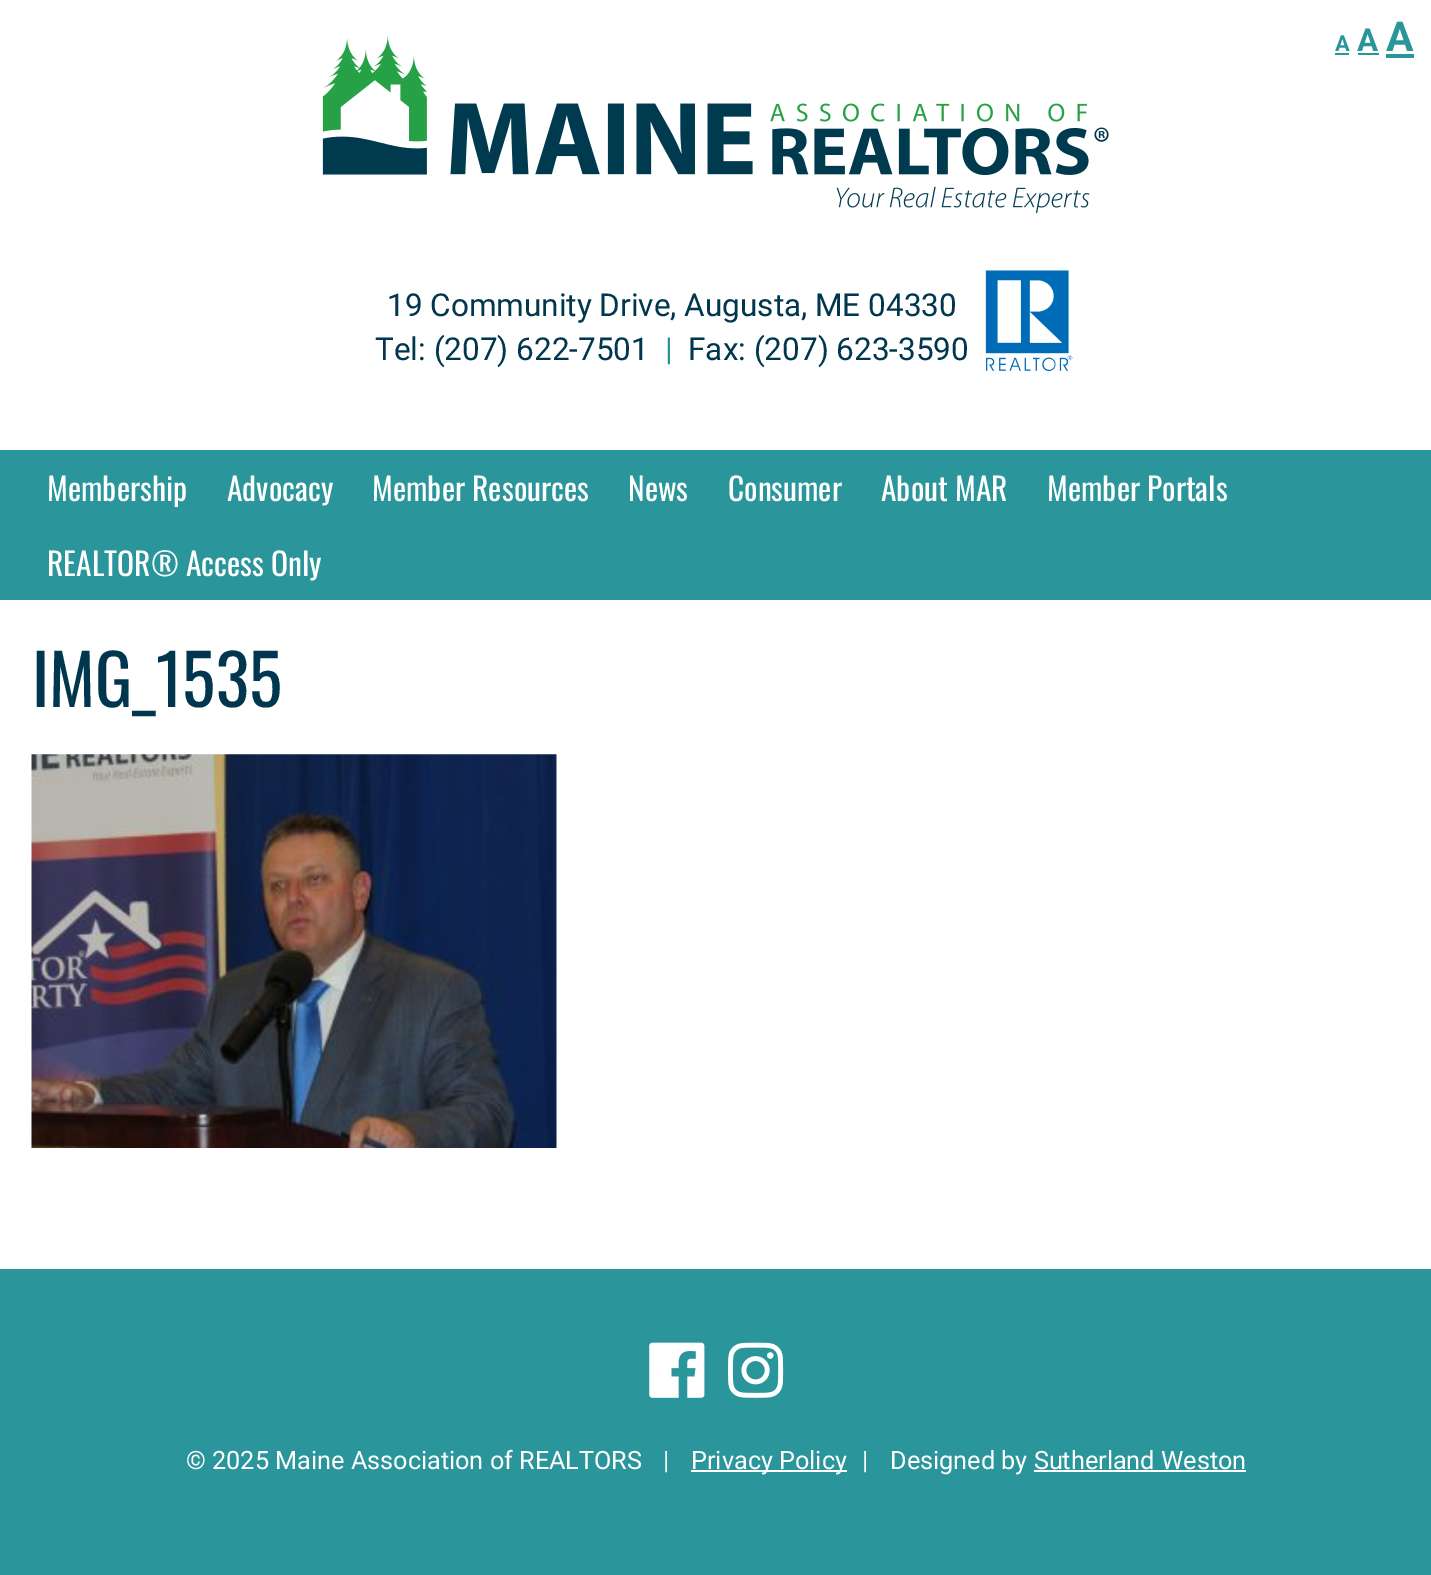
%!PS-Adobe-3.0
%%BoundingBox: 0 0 1431 1575
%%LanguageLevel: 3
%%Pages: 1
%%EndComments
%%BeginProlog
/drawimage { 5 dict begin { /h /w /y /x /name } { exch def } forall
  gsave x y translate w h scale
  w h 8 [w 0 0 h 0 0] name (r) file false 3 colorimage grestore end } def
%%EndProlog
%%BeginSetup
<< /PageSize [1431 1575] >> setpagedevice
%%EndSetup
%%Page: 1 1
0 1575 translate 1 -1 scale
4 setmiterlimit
0.165 0.588 0.608 setrgbcolor
0 0 1431 1575 rectfill
1 setgray
0 0 1431 1269 rectfill
(images/1.raw) 322 36 787 177 drawimage
0.165 0.588 0.608 setrgbcolor
1335 53 14 2 rectfill
1358 53 21 2 rectfill
1386 54 28 4 rectfill
(images/2.raw) 985 270 88 102 drawimage
0 450 1431 150 rectfill
(images/3.raw) 31 754 526 394 drawimage
(images/4.raw) 649 1342 56 56 drawimage
(images/5.raw) 728 1342 56 56 drawimage
1 setgray
691 1470 156 2 rectfill
1034 1470 212 2 rectfill
/Roboto-Bold [22 0 0 -22 0 0] selectfont
0.165 0.588 0.608 setrgbcolor
1335 51 moveto (A) show
/Roboto-Bold [31.5 0 0 -31.5 0 0] selectfont
1357 51 moveto (A) show
/Roboto-Bold [41 0 0 -41 0 0] selectfont
1386 51 moveto (A) show
/Roboto-Regular [31.5 0 0 -31.5 0 0] selectfont
0.004 0.216 0.306 setrgbcolor
387 316 moveto (19 Community Drive, Augusta, ME 04330) show
375 360 moveto (Tel: \(207\) 622-7501) show
0.165 0.588 0.608 setrgbcolor
665 360 moveto (|) show
0.004 0.216 0.306 setrgbcolor
688 360 moveto (Fax: \(207\) 623-3590) show
/Oswald-Regular [31.5 0 0 -31.5 0 0] selectfont
1 setgray
47 501 moveto (Membership) show
227 501 moveto (Advocacy) show
372 501 moveto (Member Resources) show
628 501 moveto (News) show
728 501 moveto (Consumer) show
881 501 moveto (About MAR) show
1047 501 moveto (Member Portals) show
47 576 moveto (REALTOR® Access Only) show
/Oswald-Regular [69.5 0 0 -69.5 0 0] selectfont
0.004 0.216 0.306 setrgbcolor
32 707 moveto (IMG_1535) show
/Roboto-Regular [25.25 0 0 -25.25 0 0] selectfont
1 setgray
186 1469 moveto (© 2025 Maine Association of REALTORS) show
663 1469 moveto (|) show
691 1469 moveto (Privacy Policy) show
862 1469 moveto (|) show
890 1469 moveto (Designed by Sutherland Weston) show
showpage
%%EOF
